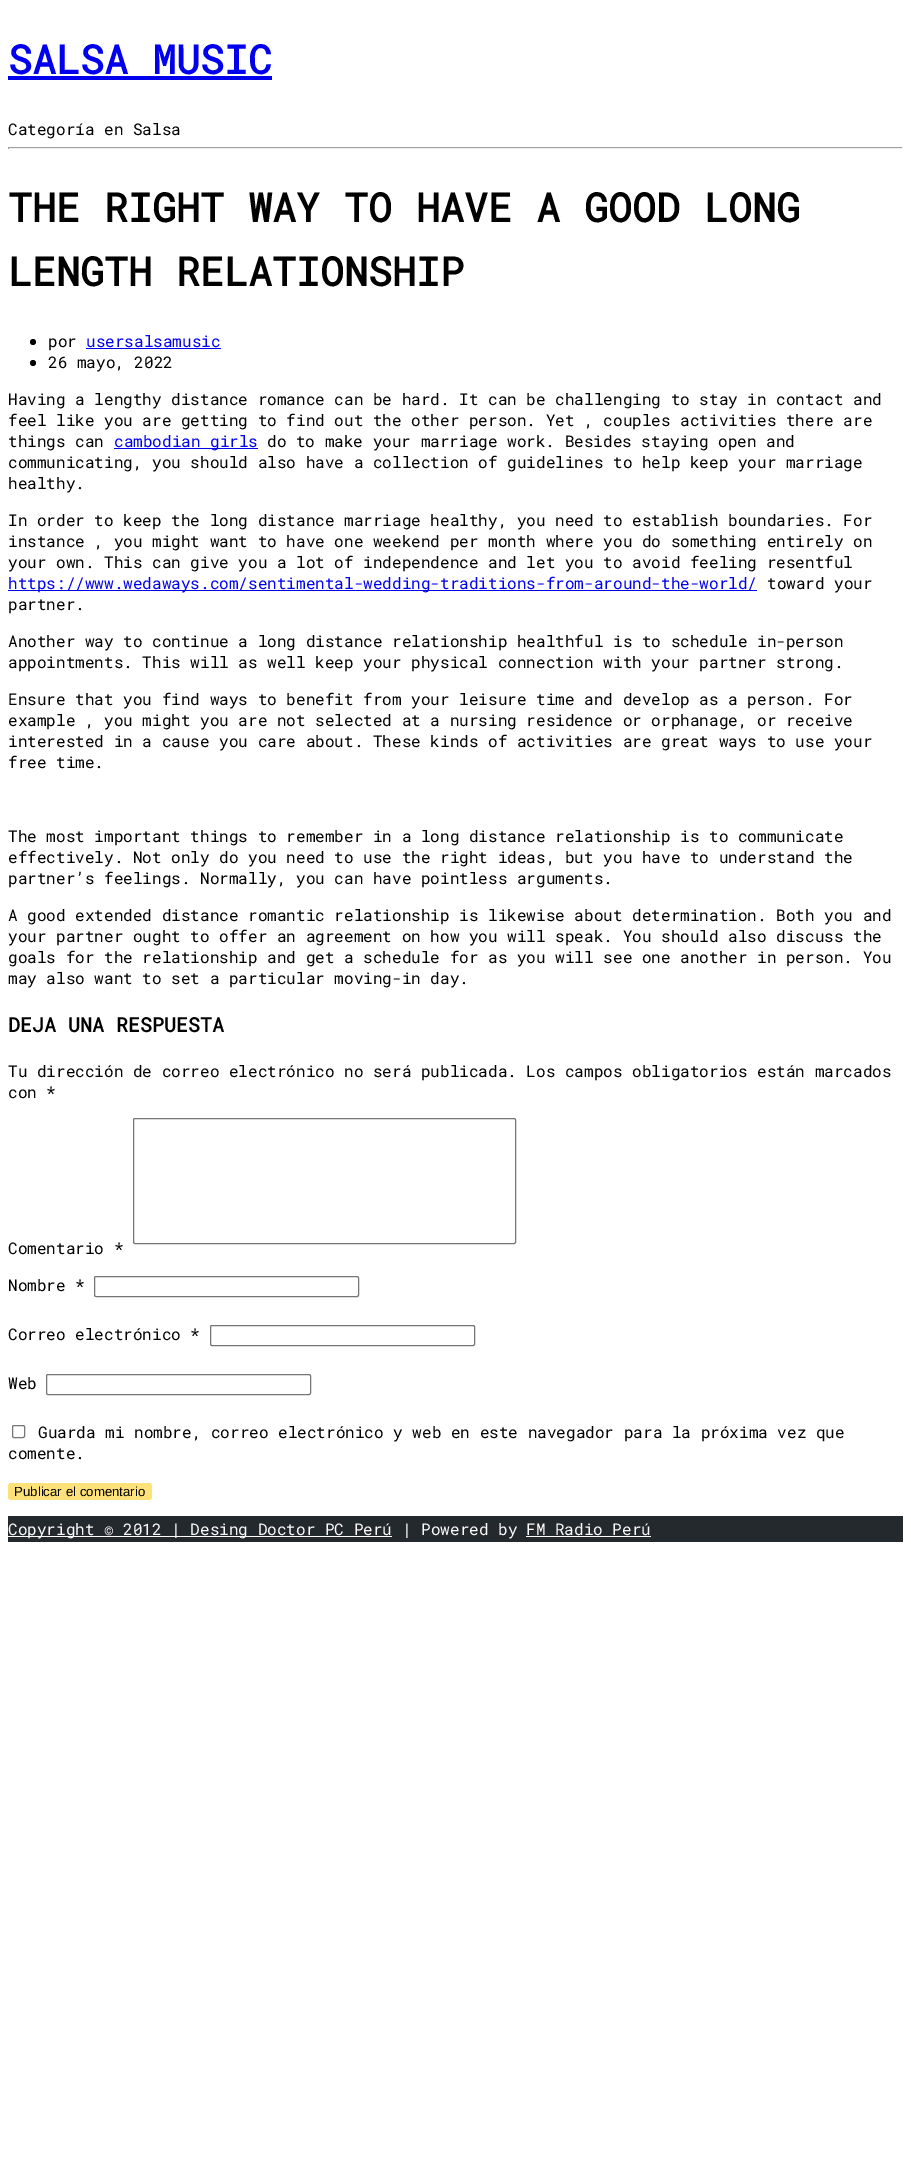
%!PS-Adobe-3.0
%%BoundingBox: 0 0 911 2180
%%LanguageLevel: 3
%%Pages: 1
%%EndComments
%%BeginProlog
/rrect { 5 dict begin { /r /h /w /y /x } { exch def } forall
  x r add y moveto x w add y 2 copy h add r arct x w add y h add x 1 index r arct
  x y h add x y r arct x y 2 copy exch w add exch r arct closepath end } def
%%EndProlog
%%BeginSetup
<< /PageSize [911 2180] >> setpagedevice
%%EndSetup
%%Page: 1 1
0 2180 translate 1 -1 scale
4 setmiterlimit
1 setgray
0 0 911 2180 rectfill
0 0 0.933 setrgbcolor
8 76 264 4 rectfill
0.624 setgray
8 147 895 1 rectfill
0.933 setgray
902 147 1 2 rectfill
8 148 895 1 rectfill
0.624 setgray
8 147 1 2 rectfill
0 setgray
newpath 33 342 3 0 360 arc closepath fill
0 0 0.933 setrgbcolor
86 348 135 1 rectfill
0 setgray
newpath 33 363 3 0 360 arc closepath fill
0 0 0.933 setrgbcolor
114 448 144 1 rectfill
8 590 749 1 rectfill
0.463 setgray
133.5 1118.5 382 125 1.5 rrect stroke
94.5 1276.5 264 20 1.5 rrect stroke
210.5 1325.5 264 20 1.5 rrect stroke
46.5 1374.5 264 20 1.5 rrect stroke
12.5 1425.5 12 12 1.5 rrect stroke
1 0.882 0.475 setrgbcolor
8 1483 144 17 3 rrect fill
0.141 0.161 0.18 setrgbcolor
8 1516 895 26 rectfill
1 0.988 0.988 setrgbcolor
8 1536 384 1 rectfill
526 1536 125 1 rectfill
/RobotoMono-Bold [40 0 0 -40 0 0] selectfont
0 0 0.933 setrgbcolor
8 74 moveto (SALSA MUSIC) show
/RobotoMono-Regular [16 0 0 -16 0 0] selectfont
0 setgray
8 135 moveto (Categoría en Salsa) show
/RobotoMono-Bold [40 0 0 -40 0 0] selectfont
8 222 moveto (THE RIGHT WAY TO HAVE A GOOD LONG) show
8 286 moveto (LENGTH RELATIONSHIP) show
/RobotoMono-Regular [16 0 0 -16 0 0] selectfont
48 347 moveto (por) show
0 0 0.933 setrgbcolor
86 347 moveto (usersalsamusic) show
0 setgray
48 368 moveto (26 mayo, 2022) show
8 405 moveto (Having a lengthy distance romance can be hard. It can be challenging to stay in contact and) show
8 426 moveto (feel like you are getting to find out the other person. Yet , couples activities there are) show
8 447 moveto (things can) show
0 0 0.933 setrgbcolor
114 447 moveto (cambodian girls) show
0 setgray
267 447 moveto (do to make your marriage work. Besides staying open and) show
8 468 moveto (communicating, you should also have a collection of guidelines to help keep your marriage) show
8 489 moveto (healthy.) show
8 526 moveto (In order to keep the long distance marriage healthy, you need to establish boundaries. For) show
8 547 moveto (instance , you might want to have one weekend per month where you do something entirely on) show
8 568 moveto (your own. This can give you a lot of independence and let you to avoid feeling resentful) show
0 0 0.933 setrgbcolor
8 589 moveto (https://www.wedaways.com/sentimental-wedding-traditions-from-around-the-world/) show
0 setgray
767 589 moveto (toward your) show
8 610 moveto (partner.) show
8 647 moveto (Another way to continue a long distance relationship healthful is to schedule in-person) show
8 668 moveto (appointments. This will as well keep your physical connection with your partner strong.) show
8 705 moveto (Ensure that you find ways to benefit from your leisure time and develop as a person. For) show
8 726 moveto (example , you might you are not selected at a nursing residence or orphanage, or receive) show
8 747 moveto (interested in a cause you care about. These kinds of activities are great ways to use your) show
8 768 moveto (free time.) show
8 842 moveto (The most important things to remember in a long distance relationship is to communicate) show
8 863 moveto (effectively. Not only do you need to use the right ideas, but you have to understand the) show
8 884 moveto (partner’s feelings. Normally, you can have pointless arguments.) show
8 921 moveto (A good extended distance romantic relationship is likewise about determination. Both you and) show
8 942 moveto (your partner ought to offer an agreement on how you will speak. You should also discuss the) show
8 963 moveto (goals for the relationship and get a schedule for as you will see one another in person. You) show
8 984 moveto (may also want to set a particular moving-in day.) show
/RobotoMono-Bold [20 0 0 -20 0 0] selectfont
8 1032 moveto (DEJA UNA RESPUESTA) show
/RobotoMono-Regular [16 0 0 -16 0 0] selectfont
8 1077 moveto (Tu dirección de correo electrónico no será publicada. Los campos obligatorios están marcados) show
8 1098 moveto (con *) show
8 1254 moveto (Comentario *) show
8 1291 moveto (Nombre *) show
8 1340 moveto (Correo electrónico *) show
8 1389 moveto (Web) show
38 1438 moveto (Guarda mi nombre, correo electrónico y web en este navegador para la próxima vez que) show
8 1459 moveto (comente.) show
/LiberationSans-Regular [13.25 0 0 -13.25 0 0] selectfont
14 1496 moveto (Publicar el comentario) show
/RobotoMono-Regular [16 0 0 -16 0 0] selectfont
1 0.988 0.988 setrgbcolor
8 1535 moveto (Copyright © 2012 | Desing Doctor PC Perú) show
402 1535 moveto (| Powered by) show
526 1535 moveto (FM Radio Perú) show
showpage
%%EOF
